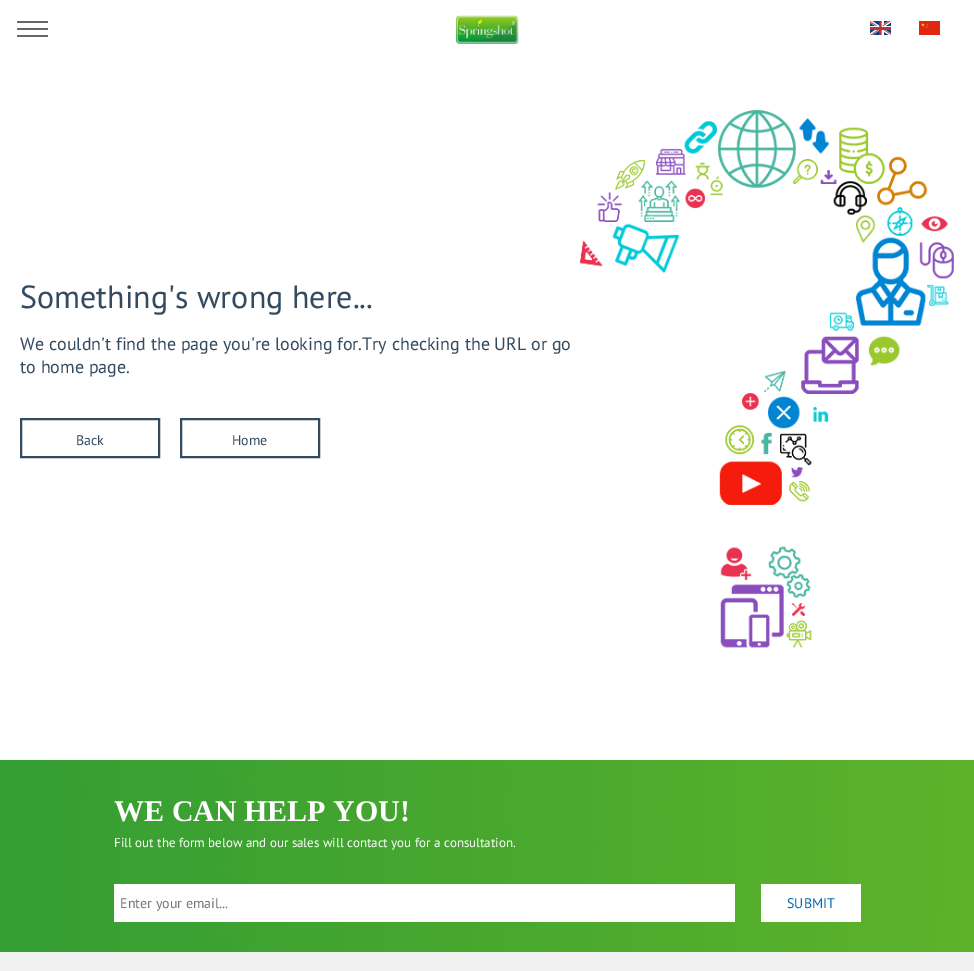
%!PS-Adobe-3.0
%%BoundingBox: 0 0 974 971
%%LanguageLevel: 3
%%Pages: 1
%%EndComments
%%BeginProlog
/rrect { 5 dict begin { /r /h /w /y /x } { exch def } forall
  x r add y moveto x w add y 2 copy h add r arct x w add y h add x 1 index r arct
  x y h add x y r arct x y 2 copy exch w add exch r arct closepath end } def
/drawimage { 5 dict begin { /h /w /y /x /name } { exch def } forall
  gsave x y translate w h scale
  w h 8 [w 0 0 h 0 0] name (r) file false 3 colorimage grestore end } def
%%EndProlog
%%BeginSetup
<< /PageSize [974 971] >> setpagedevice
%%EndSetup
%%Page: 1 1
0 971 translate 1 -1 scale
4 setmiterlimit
1 setgray
0 0 974 971 rectfill
0.4 setgray
17 28 31 2 1 rrect fill
17 21 31 2 1 rrect fill
17 35 31 2 1 rrect fill
(images/1.raw) 456 15 63 29 drawimage
(images/2.raw) 870 21 21 14 drawimage
(images/3.raw) 919 21 21 14 drawimage
0.204 0.29 0.373 setrgbcolor
2 setlinewidth
21 419 138 38 rectstroke
181 419 138 38 rectstroke
(images/4.raw) 580 110 374 538 drawimage
(images/5.raw) 0 760 974 192 drawimage
1 setgray
114 884 621 38 rectfill
761 884 100 38 rectfill
0.945 setgray
0 952 974 19 rectfill
/PTSans-Regular [32 0 0 -32 0 0] selectfont
0.204 0.29 0.373 setrgbcolor
20 308 moveto (Something's wrong here...) show
/PTSans-Regular [18 0 0 -18 0 0] selectfont
20 350 moveto (We couldn't find the page you're looking for.Try checking the URL or go) show
20 373 moveto (to home page.) show
/PTSans-Regular [14 0 0 -14 0 0] selectfont
76 445 moveto (Back) show
232 445 moveto (Home) show
/LiberationSerif-Bold [30 0 0 -30 0 0] selectfont
1 setgray
114 821 moveto (WE CAN HELP YOU!) show
/PTSans-Regular [13 0 0 -13 0 0] selectfont
114 847 moveto (Fill out the form below and our sales will contact you for a consultation.) show
/PTSans-Regular [14 0 0 -14 0 0] selectfont
0.459 setgray
120 908 moveto (Enter your email...) show
0 0.416 0.702 setrgbcolor
787 908 moveto (SUBMIT) show
showpage
%%EOF
